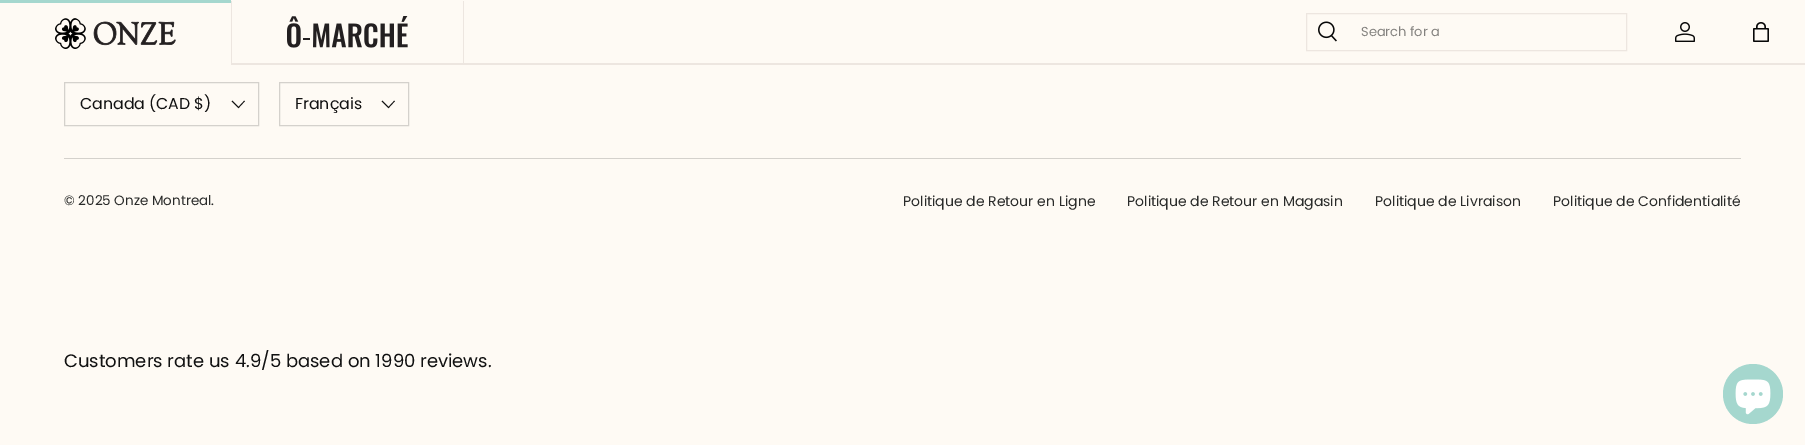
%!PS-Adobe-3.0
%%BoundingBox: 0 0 1805 445
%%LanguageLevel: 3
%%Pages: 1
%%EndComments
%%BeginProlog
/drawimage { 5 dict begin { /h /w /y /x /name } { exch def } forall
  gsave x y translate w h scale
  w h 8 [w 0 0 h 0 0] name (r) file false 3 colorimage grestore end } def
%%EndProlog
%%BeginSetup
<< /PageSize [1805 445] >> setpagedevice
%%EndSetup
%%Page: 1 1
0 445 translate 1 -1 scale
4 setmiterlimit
0.996 0.98 0.957 setrgbcolor
0 0 1805 445 rectfill
0.929 0.902 0.878 setrgbcolor
231 63 1574 2 rectfill
0.647 0.843 0.808 setrgbcolor
0 0 231 3 rectfill
(images/1.raw) 55 18 121 31 drawimage
0.929 0.902 0.878 setrgbcolor
463 1 1 62 rectfill
231 1 1 62 rectfill
(images/2.raw) 287 16 121 32 drawimage
1306.5 13.5 320 37 rectstroke
(images/3.raw) 1318 21 19 21 drawimage
(images/4.raw) 1675 22 20 20 drawimage
(images/5.raw) 1753 22 16 20 drawimage
0.831 0.82 0.8 setrgbcolor
64.5 82.5 194 43 rectstroke
0.067 setgray
0.8 setlinewidth
newpath 244.5 101 moveto 238.5 107.5 lineto 232 101 lineto stroke
0.831 0.82 0.8 setrgbcolor
1 setlinewidth
279.5 82.5 129 43 rectstroke
0.067 setgray
0.8 setlinewidth
newpath 394.5 101 moveto 388.5 107.5 lineto 382 101 lineto stroke
0.831 0.82 0.8 setrgbcolor
64 158 1677 1 rectfill
0.647 0.843 0.808 setrgbcolor
newpath 1753 394 30 0 360 arc closepath fill
(images/6.raw) 1735 379 36 36 drawimage
/Poppins-Regular [13 0 0 -13 0 0] selectfont
0.514 0.506 0.494 setrgbcolor
1361 36 moveto (Search for a) show
/Poppins-Regular [15.75 0 0 -15.75 0 0] selectfont
0.067 setgray
80 109 moveto (Canada \(CAD $\)) show
295 109 moveto (Français) show
/Poppins-Regular [13.5 0 0 -13.5 0 0] selectfont
0.165 0.169 0.165 setrgbcolor
64 205 moveto (© 2025 Onze Montreal.) show
/Poppins-Regular [14 0 0 -14 0 0] selectfont
903 206 moveto (Politique de Retour en Ligne) show
1127 206 moveto (Politique de Retour en Magasin) show
1375 206 moveto (Politique de Livraison) show
1553 206 moveto (Politique de Confidentialité) show
/Poppins-Regular [18 0 0 -18 0 0] selectfont
0.067 setgray
64 367 moveto (Customers rate us 4.9/5 based on 1990 reviews.) show
showpage
%%EOF
